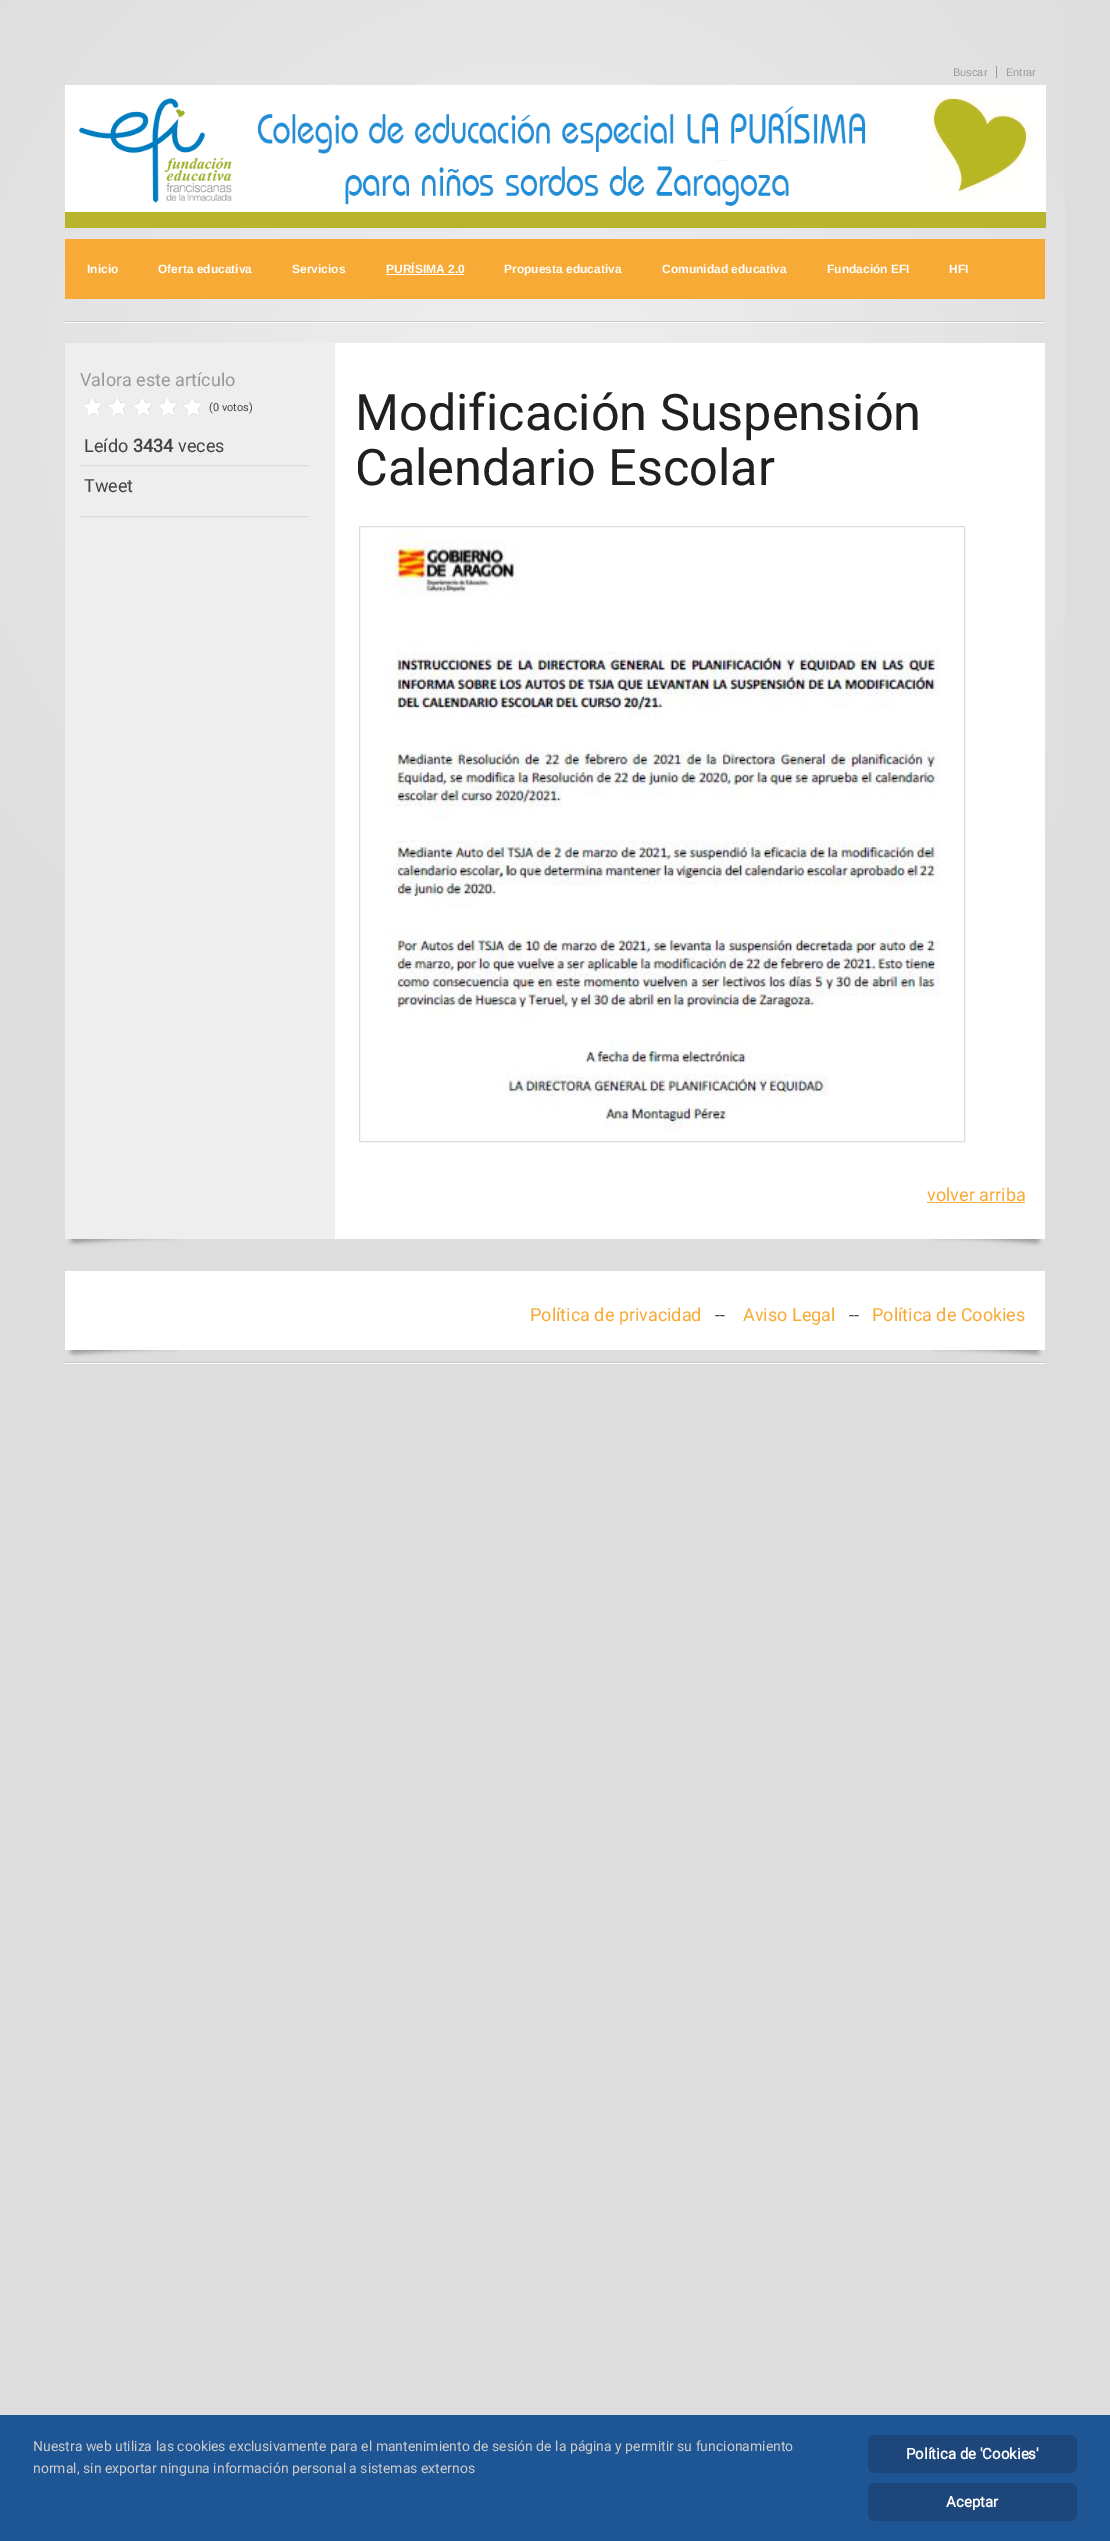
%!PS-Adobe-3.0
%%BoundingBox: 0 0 1110 2541
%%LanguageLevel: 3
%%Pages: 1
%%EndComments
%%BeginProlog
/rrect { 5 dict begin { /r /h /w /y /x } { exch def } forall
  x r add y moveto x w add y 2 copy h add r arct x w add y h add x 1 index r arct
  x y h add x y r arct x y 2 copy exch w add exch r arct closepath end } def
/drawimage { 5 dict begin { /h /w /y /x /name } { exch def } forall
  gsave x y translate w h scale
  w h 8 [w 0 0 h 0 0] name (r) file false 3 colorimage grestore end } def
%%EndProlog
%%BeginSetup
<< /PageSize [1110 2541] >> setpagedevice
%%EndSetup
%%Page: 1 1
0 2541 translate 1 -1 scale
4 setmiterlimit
0.867 setgray
0 0 1110 2541 rectfill
(images/1.raw) 0 0 1065 942 drawimage
0.6 setgray
996 66 1 12 rectfill
(images/2.raw) 65 321 980 2 drawimage
(images/3.raw) 65 85 981 143 drawimage
0.969 0.667 0.212 setrgbcolor
65 239 980 60 rectfill
1 setgray
386 274 78 1 rectfill
(images/4.raw) 67 1239 111 7 drawimage
(images/5.raw) 932 1239 111 7 drawimage
335 343 710 896 rectfill
0.933 setgray
65 343 270 896 rectfill
(images/6.raw) 83 398 119 18 drawimage
0.8 setgray
[1 1] 0 setdash
newpath 80 465.5 moveto 310 465.5 lineto stroke
newpath 80 516.5 moveto 310 516.5 lineto stroke
0.867 setgray
[] 0 setdash
359.5 526.5 605 615 rectstroke
(images/7.raw) 384 529 556 601 drawimage
0.969 0.667 0.212 setrgbcolor
927 1202 98 1 rectfill
(images/4.raw) 67 1350 111 7 drawimage
(images/5.raw) 932 1350 111 7 drawimage
1 setgray
65 1271 980 79 rectfill
(images/2.raw) 65 1362 980 2 drawimage
0.118 0.337 0.584 setrgbcolor
0 2415 1110 126 rectfill
0.114 0.275 0.478 setrgbcolor
868 2435 209 38 7 rrect fill
868 2483 209 38 7 rrect fill
/LiberationSans-Regular [11 0 0 -11 0 0] selectfont
0.6 setgray
953 76 moveto (Buscar) show
1006 76 moveto (Entrar) show
/LiberationSans-Bold [12 0 0 -12 0 0] selectfont
1 setgray
87 273 moveto (Inicio) show
158 273 moveto (Oferta educativa) show
292 273 moveto (Servicios) show
386 273 moveto (PURÍSIMA 2.0) show
504 273 moveto (Propuesta educativa) show
662 273 moveto (Comunidad educativa) show
827 273 moveto (Fundación EFI) show
949 273 moveto (HFI) show
/Roboto-Regular [18 0 0 -18 0 0] selectfont
0.6 setgray
80 386 moveto (Valora este artículo) show
/Roboto-Regular [11 0 0 -11 0 0] selectfont
0.267 setgray
209 411 moveto (\(0 votos\)) show
/Roboto-Regular [18 0 0 -18 0 0] selectfont
84 452 moveto (Leído) show
/Roboto-Bold [18 0 0 -18 0 0] selectfont
133 452 moveto (3434) show
/Roboto-Regular [18 0 0 -18 0 0] selectfont
178 452 moveto (veces) show
84 492 moveto (Tweet) show
/Roboto-Regular [50.4 0 0 -50.4 0 0] selectfont
0.125 setgray
355 430 moveto (Modificación Suspensión) show
355 485 moveto (Calendario Escolar) show
/Roboto-Regular [18 0 0 -18 0 0] selectfont
0.969 0.667 0.212 setrgbcolor
927 1201 moveto (volver arriba) show
530 1321 moveto (Política de privacidad) show
0.267 setgray
715 1321 moveto (--) show
0.969 0.667 0.212 setrgbcolor
743 1321 moveto (Aviso Legal) show
0.267 setgray
849 1321 moveto (--) show
0.969 0.667 0.212 setrgbcolor
872 1321 moveto (Política de Cookies) show
/Roboto-Regular [14 0 0 -14 0 0] selectfont
0.8 setgray
33 2451 moveto (Nuestra web utiliza las cookies exclusivamente para el mantenimiento de sesión de la página y permitir su funcionamiento) show
33 2473 moveto (normal, sin exportar ninguna información personal a sistemas externos) show
/Roboto-Bold [15 0 0 -15 0 0] selectfont
1 setgray
906 2459 moveto (Política de 'Cookies') show
946 2507 moveto (Aceptar) show
showpage
%%EOF
